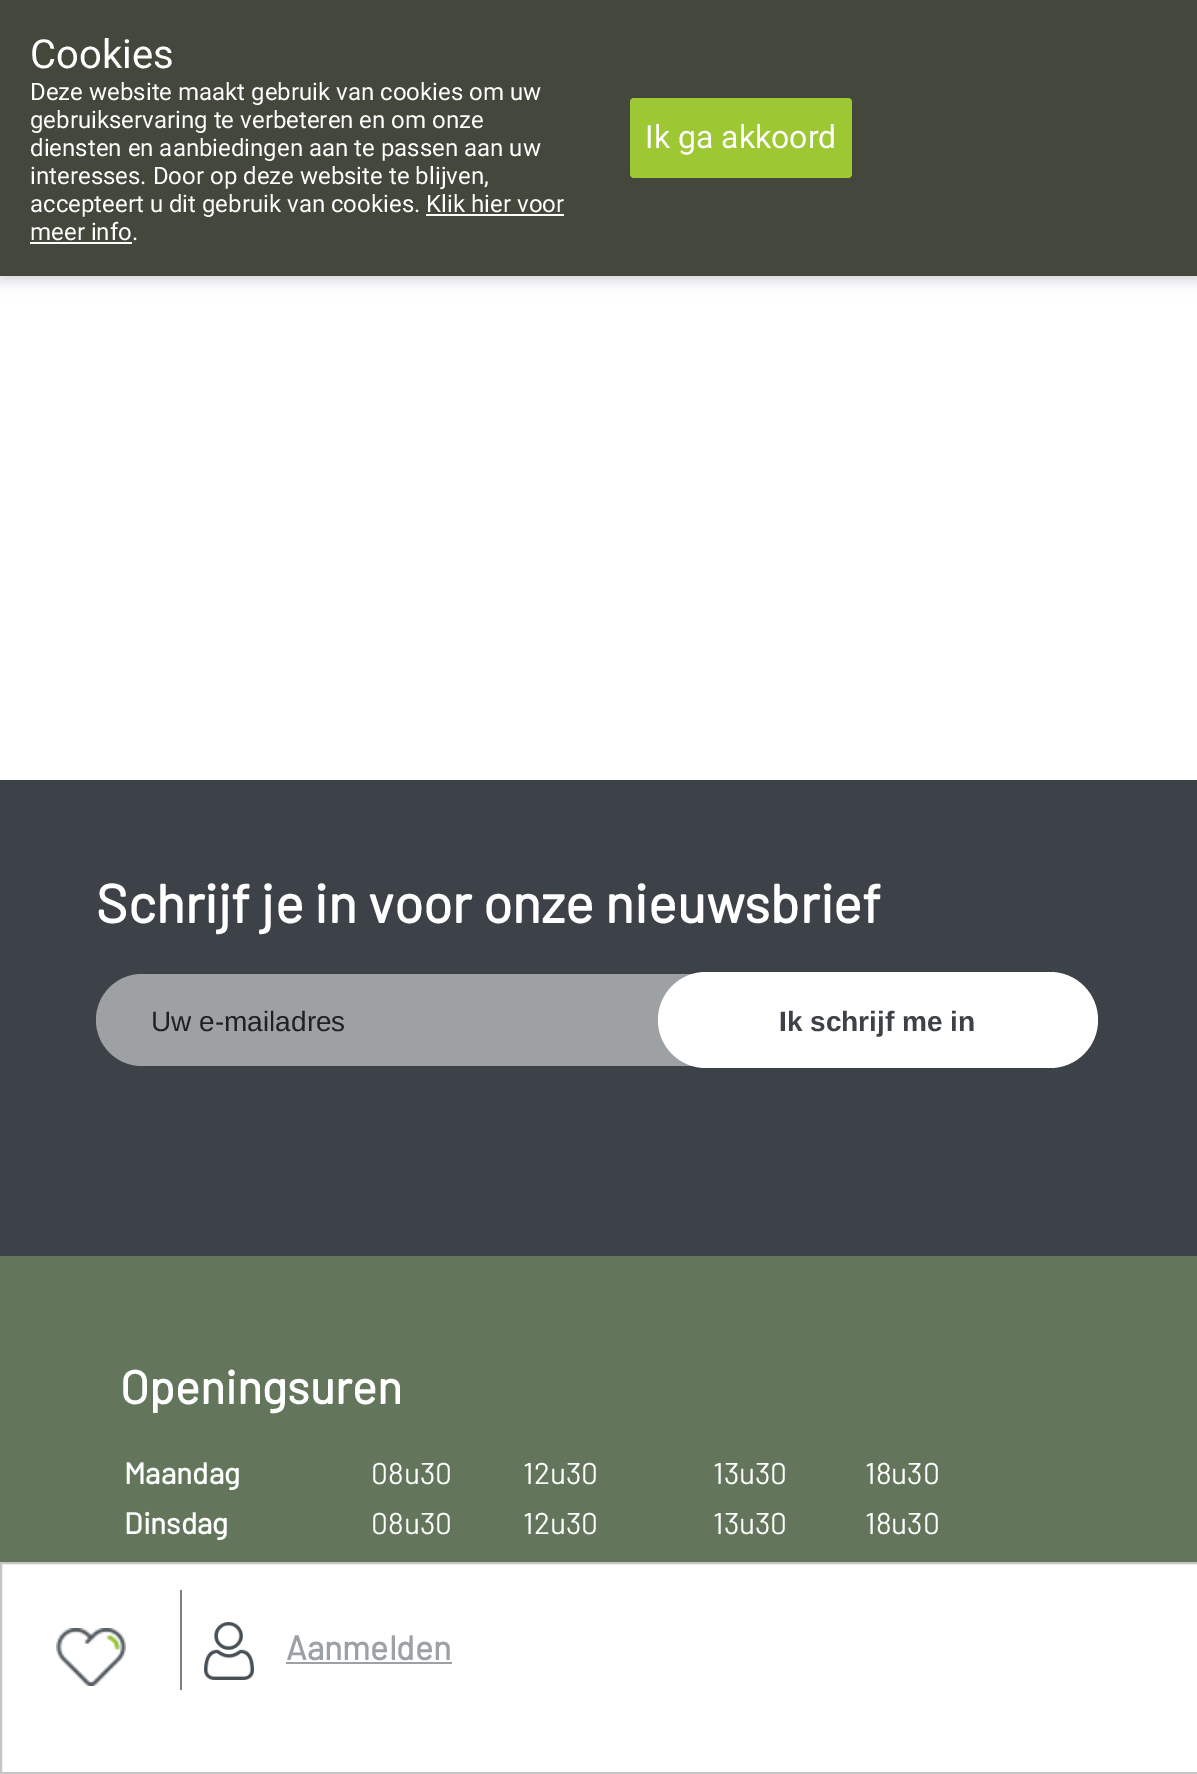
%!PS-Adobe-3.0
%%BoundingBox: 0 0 1197 1774
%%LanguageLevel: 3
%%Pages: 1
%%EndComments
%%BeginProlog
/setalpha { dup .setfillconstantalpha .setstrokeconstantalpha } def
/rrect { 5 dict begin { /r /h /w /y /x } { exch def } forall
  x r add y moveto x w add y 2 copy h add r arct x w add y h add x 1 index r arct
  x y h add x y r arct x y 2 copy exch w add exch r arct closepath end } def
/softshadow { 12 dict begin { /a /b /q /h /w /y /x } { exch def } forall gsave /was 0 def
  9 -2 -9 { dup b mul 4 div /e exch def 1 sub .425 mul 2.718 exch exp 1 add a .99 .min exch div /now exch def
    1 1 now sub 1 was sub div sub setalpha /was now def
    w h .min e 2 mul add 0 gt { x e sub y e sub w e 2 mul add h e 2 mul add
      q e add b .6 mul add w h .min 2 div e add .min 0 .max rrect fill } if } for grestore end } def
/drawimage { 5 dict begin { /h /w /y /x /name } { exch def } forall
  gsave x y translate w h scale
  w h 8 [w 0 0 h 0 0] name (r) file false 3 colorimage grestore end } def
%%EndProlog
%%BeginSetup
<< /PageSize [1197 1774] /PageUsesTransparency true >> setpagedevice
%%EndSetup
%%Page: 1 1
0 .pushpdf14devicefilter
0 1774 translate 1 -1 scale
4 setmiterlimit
1 setgray
0 0 1197 1774 rectfill
0 setgray
0 2 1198 276 0 3 0.08 softshadow
0.196 0.196 0.365 setrgbcolor
0 8 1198 276 0 6 0.11 softshadow
0.267 0.282 0.235 setrgbcolor
0 0 1197 276 rectfill
1 setgray
426 214 138 2 rectfill
30 242 102 2 rectfill
0.616 0.78 0.2 setrgbcolor
630 98 222 80 4 rrect fill
0.235 0.259 0.282 setrgbcolor
0 780 1197 476 rectfill
1 setgray
658 972 440 96 48 rrect fill
0.5 setalpha
96 974 666 92 46 rrect fill
1 setalpha
0.388 0.463 0.361 setrgbcolor
0 1256 1197 306 rectfill
0.773 setgray
2 setlinewidth
1 1563 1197 210 rectstroke
(images/1.raw) 56 1628 70 58 drawimage
0.502 setgray
180 1590 2 100 rectfill
(images/2.raw) 204 1622 50 58 drawimage
0.608 0.631 0.651 setrgbcolor
286 1662 166 2 rectfill
/Roboto-Regular [40 0 0 -40 0 0] selectfont
1 setgray
30 68 moveto (Cookies) show
/Roboto-Regular [24 0 0 -24 0 0] selectfont
30 100 moveto (Deze website maakt gebruik van cookies om uw) show
30 128 moveto (gebruikservaring te verbeteren en om onze) show
30 156 moveto (diensten en aanbiedingen aan te passen aan uw) show
30 184 moveto (interesses. Door op deze website te blijven,) show
30 212 moveto (accepteert u dit gebruik van cookies. Klik hier voor) show
30 240 moveto (meer info.) show
/Roboto-Regular [32 0 0 -32 0 0] selectfont
645 148 moveto (Ik ga akkoord) show
/Barlow-Bold [54 0 0 -54 0 0] selectfont
96 923 moveto (Schrijf je in voor onze nieuwsbrief) show
/LiberationSans-Regular [28 0 0 -28 0 0] selectfont
0.118 0.129 0.141 setrgbcolor
151 1031 moveto (Uw e-mailadres) show
/LiberationSans-Bold [28 0 0 -28 0 0] selectfont
0.235 0.259 0.282 setrgbcolor
779 1031 moveto (Ik schrijf me in) show
/Barlow-Bold [46.75 0 0 -46.75 0 0] selectfont
1 setgray
120 1404 moveto (Openingsuren) show
/Barlow-Bold [30 0 0 -30 0 0] selectfont
124 1484 moveto (Maandag) show
/Barlow-Regular [30 0 0 -30 0 0] selectfont
371 1484 moveto (08u30) show
523 1484 moveto (12u30) show
713 1484 moveto (13u30) show
865 1484 moveto (18u30) show
/Barlow-Bold [30 0 0 -30 0 0] selectfont
124 1534 moveto (Dinsdag) show
/Barlow-Regular [30 0 0 -30 0 0] selectfont
371 1534 moveto (08u30) show
523 1534 moveto (12u30) show
713 1534 moveto (13u30) show
865 1534 moveto (18u30) show
/Barlow-Bold [34 0 0 -34 0 0] selectfont
0.608 0.631 0.651 setrgbcolor
286 1660 moveto (Aanmelden) show
.poppdf14devicefilter showpage
%%EOF
